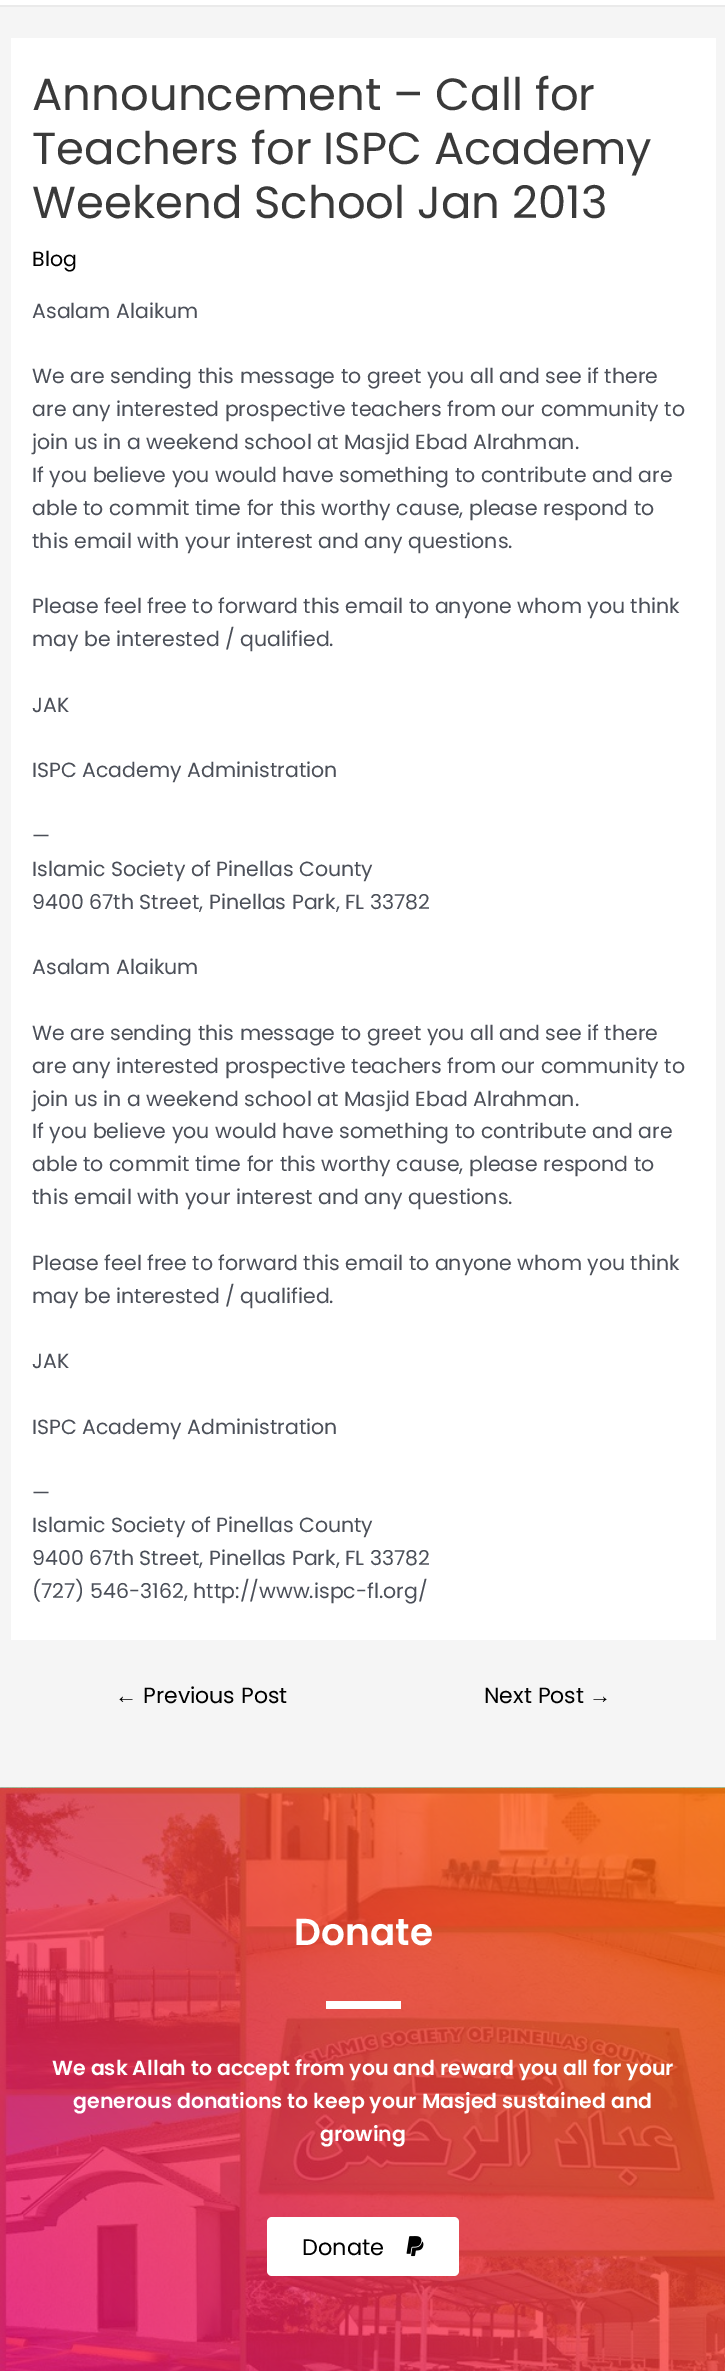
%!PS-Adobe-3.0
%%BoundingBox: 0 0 725 2371
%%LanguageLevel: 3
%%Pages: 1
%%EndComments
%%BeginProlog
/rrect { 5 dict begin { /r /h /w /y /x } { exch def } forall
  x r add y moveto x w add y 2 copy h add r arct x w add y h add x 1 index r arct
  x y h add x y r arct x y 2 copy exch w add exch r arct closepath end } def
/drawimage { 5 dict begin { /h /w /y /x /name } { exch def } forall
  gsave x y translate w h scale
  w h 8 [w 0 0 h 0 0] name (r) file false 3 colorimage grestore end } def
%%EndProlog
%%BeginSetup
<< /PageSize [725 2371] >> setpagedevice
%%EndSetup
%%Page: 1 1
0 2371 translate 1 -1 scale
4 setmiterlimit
0.961 setgray
0 0 725 2371 rectfill
1 setgray
0 0 725 5 rectfill
0.918 setgray
0 5 725 2 rectfill
1 setgray
11 38 705 1602 rectfill
(images/1.raw) 0 1787 725 584 drawimage
326 2001 75 8 rectfill
267 2217 192 59 5 rrect fill
(images/2.raw) 406 2236 18 21 drawimage
/Poppins-Regular [45 0 0 -45 0 0] selectfont
0.227 setgray
32 110 moveto (Announcement – Call for) show
32 164 moveto (Teachers for ISPC Academy) show
32 218 moveto (Weekend School Jan 2013) show
/Poppins-Regular [20.5 0 0 -20.5 0 0] selectfont
0 setgray
32 266 moveto (Blog) show
0.294 0.31 0.345 setrgbcolor
32 318 moveto (Asalam Alaikum) show
32 383 moveto (We are sending this message to greet you all and see if there) show
32 416 moveto (are any interested prospective teachers from our community to) show
32 449 moveto (join us in a weekend school at Masjid Ebad Alrahman.) show
32 482 moveto (If you believe you would have something to contribute and are) show
32 515 moveto (able to commit time for this worthy cause, please respond to) show
32 548 moveto (this email with your interest and any questions.) show
32 613 moveto (Please feel free to forward this email to anyone whom you think) show
32 646 moveto (may be interested / qualified.) show
32 712 moveto (JAK) show
32 777 moveto (ISPC Academy Administration) show
32 843 moveto (—) show
32 876 moveto (Islamic Society of Pinellas County) show
32 909 moveto (9400 67th Street, Pinellas Park, FL 33782) show
32 974 moveto (Asalam Alaikum) show
32 1040 moveto (We are sending this message to greet you all and see if there) show
32 1073 moveto (are any interested prospective teachers from our community to) show
32 1106 moveto (join us in a weekend school at Masjid Ebad Alrahman.) show
32 1138 moveto (If you believe you would have something to contribute and are) show
32 1171 moveto (able to commit time for this worthy cause, please respond to) show
32 1204 moveto (this email with your interest and any questions.) show
32 1270 moveto (Please feel free to forward this email to anyone whom you think) show
32 1303 moveto (may be interested / qualified.) show
32 1368 moveto (JAK) show
32 1434 moveto (ISPC Academy Administration) show
32 1500 moveto (—) show
32 1532 moveto (Islamic Society of Pinellas County) show
32 1565 moveto (9400 67th Street, Pinellas Park, FL 33782) show
32 1598 moveto (\(727\) 546-3162, http://www.ispc-fl.org/) show
/LiberationSans-Regular [22 0 0 -22 0 0] selectfont
0 setgray
115 1703 moveto (←) show
/Poppins-Regular [22 0 0 -22 0 0] selectfont
143 1703 moveto (Previous Post) show
484 1703 moveto (Next Post) show
/LiberationSans-Regular [22 0 0 -22 0 0] selectfont
589 1703 moveto (→) show
/Poppins-SemiBold [37.5 0 0 -37.5 0 0] selectfont
1 setgray
294 1945 moveto (Donate) show
/Poppins-SemiBold [20.5 0 0 -20.5 0 0] selectfont
52 2075 moveto (We ask Allah to accept from you and reward you all for your) show
73 2108 moveto (generous donations to keep your Masjed sustained and) show
320 2141 moveto (growing) show
/Poppins-Regular [22.5 0 0 -22.5 0 0] selectfont
0 setgray
302 2255 moveto (Donate) show
showpage
%%EOF
